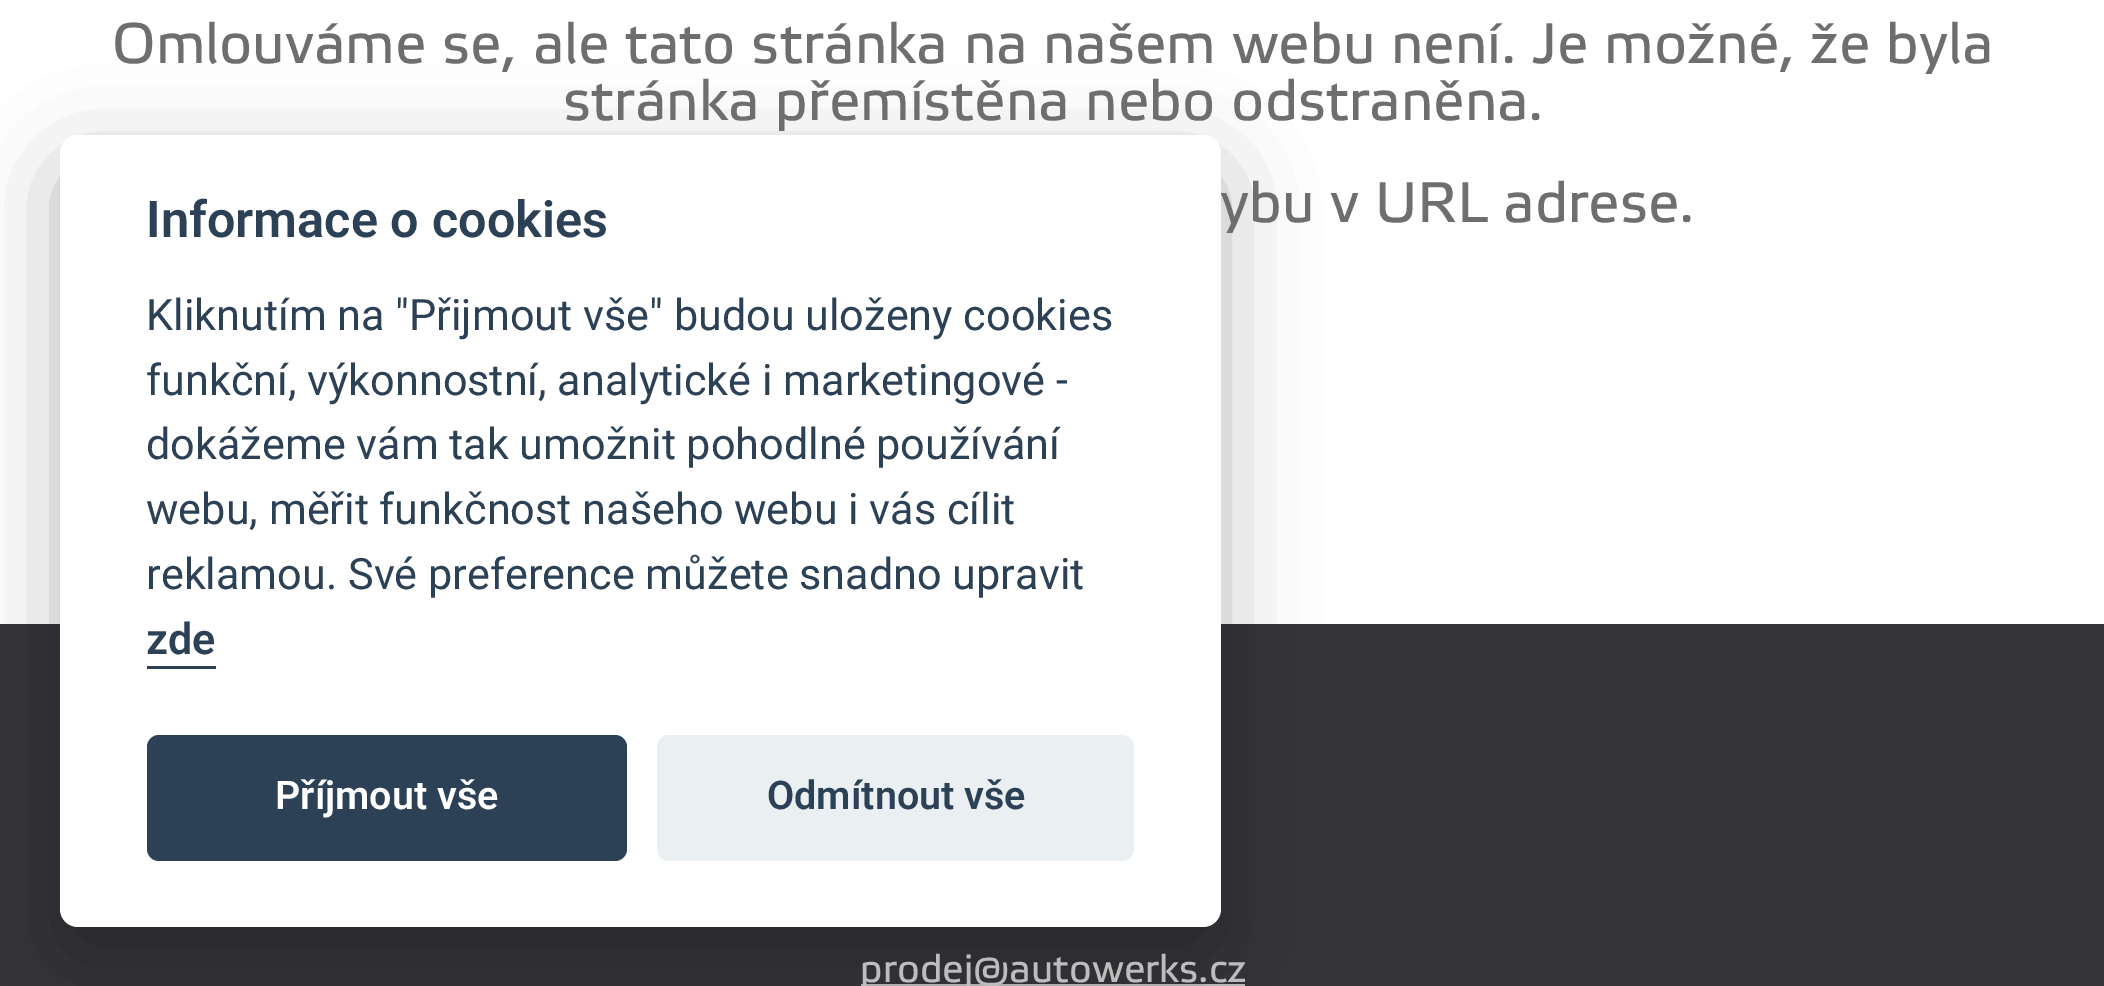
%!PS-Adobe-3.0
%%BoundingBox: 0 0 2104 986
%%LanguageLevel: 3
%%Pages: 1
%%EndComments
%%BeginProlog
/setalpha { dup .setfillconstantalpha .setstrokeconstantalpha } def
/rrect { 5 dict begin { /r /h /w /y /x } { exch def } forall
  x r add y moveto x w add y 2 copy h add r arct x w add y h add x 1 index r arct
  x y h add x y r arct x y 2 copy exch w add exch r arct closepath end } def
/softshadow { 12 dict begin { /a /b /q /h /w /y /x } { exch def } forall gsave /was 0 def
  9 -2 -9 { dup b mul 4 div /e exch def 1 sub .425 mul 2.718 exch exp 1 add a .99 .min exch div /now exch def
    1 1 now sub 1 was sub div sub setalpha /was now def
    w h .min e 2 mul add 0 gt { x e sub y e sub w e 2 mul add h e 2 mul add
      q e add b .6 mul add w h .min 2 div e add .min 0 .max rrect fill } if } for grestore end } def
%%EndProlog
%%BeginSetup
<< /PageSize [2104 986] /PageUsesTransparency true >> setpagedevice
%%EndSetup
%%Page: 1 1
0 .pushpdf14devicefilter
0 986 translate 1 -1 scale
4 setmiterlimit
1 setgray
0 0 2104 986 rectfill
0.208 0.204 0.224 setrgbcolor
0 624 2104 362 rectfill
0.741 setgray
861 984 384 2 rectfill
0.008 0.008 0.012 setrgbcolor
60 165 1161 792 18 45 0.28 softshadow
/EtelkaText-Regular [57 0 0 -57 0 0] selectfont
0.431 setgray
112 63 moveto (Omlouváme se, ale tato stránka na našem webu není. Je možné, že byla) show
563 120 moveto (stránka přemístěna nebo odstraněna.) show
1220 222 moveto (ybu v URL adrese.) show
1 setgray
60 135 1161 792 18 rrect fill
/Roboto-SemiBold [50.5 0 0 -50.5 0 0] selectfont
0.176 0.255 0.337 setrgbcolor
146 237 moveto (Informace o cookies) show
/Roboto-Regular [43.2 0 0 -43.2 0 0] selectfont
146 330 moveto (Kliknutím na "Přijmout vše" budou uloženy cookies) show
146 395 moveto (funkční, výkonnostní, analytické i marketingové -) show
146 459 moveto (dokážeme vám tak umožnit pohodlné používání) show
146 524 moveto (webu, měřit funkčnost našeho webu i vás cílit) show
146 589 moveto (reklamou. Své preference můžete snadno upravit) show
/Roboto-SemiBold [43.2 0 0 -43.2 0 0] selectfont
146 654 moveto (zde) show
147 666 69 3 rectfill
147 735 480 126 12 rrect fill
/Roboto-SemiBold [39.5 0 0 -39.5 0 0] selectfont
1 setgray
275 809 moveto (Příjmout vše) show
0.918 0.937 0.949 setrgbcolor
657 735 477 126 12 rrect fill
0.176 0.255 0.337 setrgbcolor
767 809 moveto (Odmítnout vše) show
/EtelkaText-Regular [39 0 0 -39 0 0] selectfont
0.741 setgray
860 982 moveto (prodej@autowerks.cz) show
.poppdf14devicefilter showpage
%%EOF
